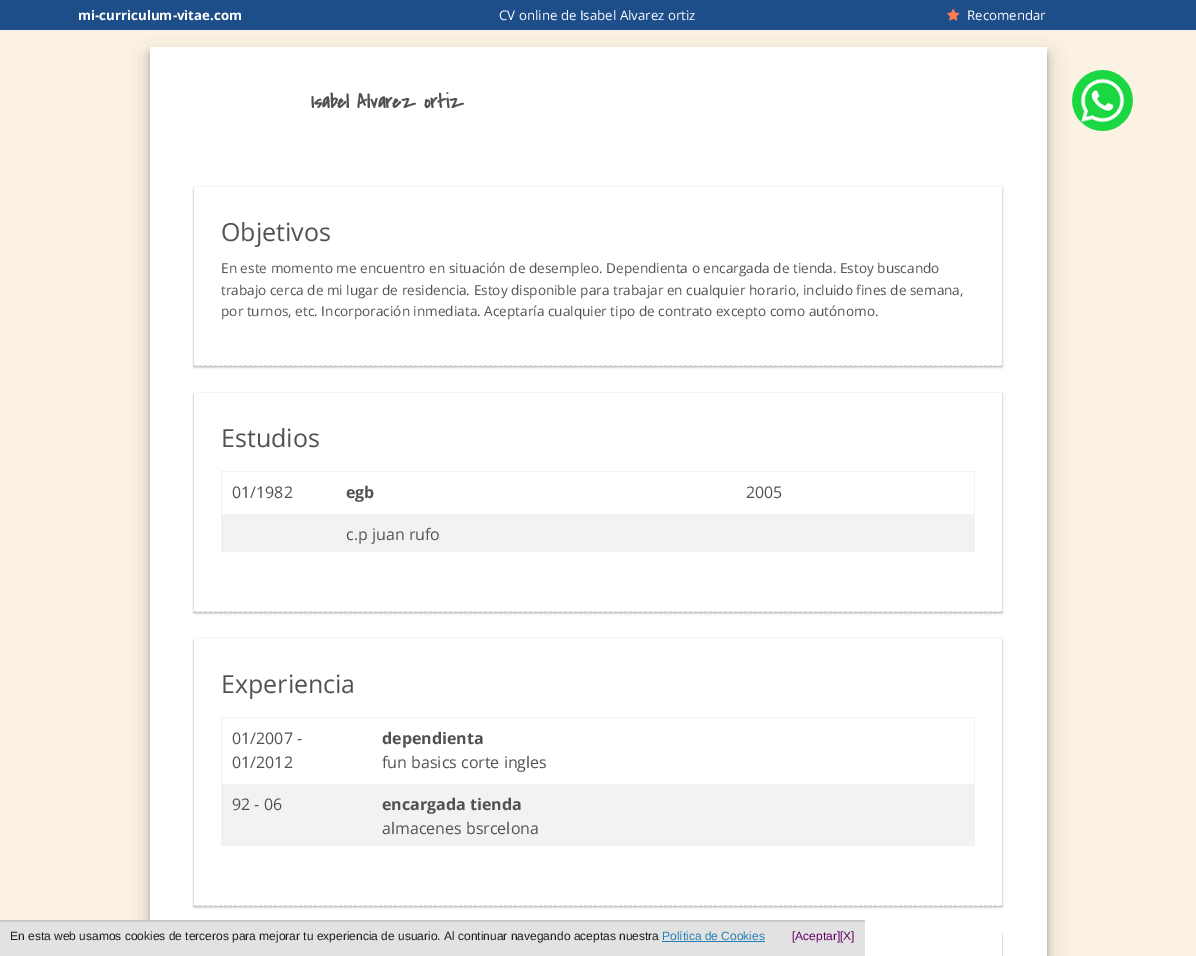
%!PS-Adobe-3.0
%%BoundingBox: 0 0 1196 956
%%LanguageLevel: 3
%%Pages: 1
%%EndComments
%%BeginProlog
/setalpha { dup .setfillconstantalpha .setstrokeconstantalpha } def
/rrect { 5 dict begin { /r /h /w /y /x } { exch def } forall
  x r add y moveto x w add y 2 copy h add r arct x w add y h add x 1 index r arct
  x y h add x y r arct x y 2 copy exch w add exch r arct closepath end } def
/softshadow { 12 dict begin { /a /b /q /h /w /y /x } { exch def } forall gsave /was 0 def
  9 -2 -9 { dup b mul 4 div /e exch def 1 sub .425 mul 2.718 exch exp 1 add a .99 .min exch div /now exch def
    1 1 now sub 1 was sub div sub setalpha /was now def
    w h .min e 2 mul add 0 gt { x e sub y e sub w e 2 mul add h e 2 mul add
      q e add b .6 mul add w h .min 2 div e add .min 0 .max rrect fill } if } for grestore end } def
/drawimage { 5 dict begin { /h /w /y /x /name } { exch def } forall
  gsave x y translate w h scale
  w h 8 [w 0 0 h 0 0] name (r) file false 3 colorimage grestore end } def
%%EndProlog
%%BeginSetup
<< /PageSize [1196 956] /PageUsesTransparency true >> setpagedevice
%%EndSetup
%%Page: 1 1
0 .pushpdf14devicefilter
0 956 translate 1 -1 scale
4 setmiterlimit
0.988 0.949 0.89 setrgbcolor
0 0 1196 956 rectfill
0 setgray
150 57 897 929 0 10 0.19 softshadow
0.114 0.306 0.537 setrgbcolor
0 0 1196 30 rectfill
(images/1.raw) 947 8 13 13 drawimage
0 setgray
150 53 897 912 0 3 0.23 softshadow
1 setgray
150 47 897 909 rectfill
(images/2.raw) 1072 70 61 61 drawimage
gsave
newpath 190 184 moveto 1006 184 lineto 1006 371 lineto 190 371 lineto closepath 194 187 moveto 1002 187 lineto 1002 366 lineto 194 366 lineto closepath eoclip newpath
0 setgray
194 188 808 179 0 1 0.24 softshadow
grestore
gsave
newpath 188 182 moveto 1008 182 lineto 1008 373 lineto 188 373 lineto closepath 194 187 moveto 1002 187 lineto 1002 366 lineto 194 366 lineto closepath eoclip newpath
0 setgray
194 188 808 179 0 1.5 0.12 softshadow
grestore
0.867 setgray
[3 2] 0 setdash
newpath 194 365.5 moveto 1002 365.5 lineto stroke
gsave
newpath 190 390 moveto 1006 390 lineto 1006 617 lineto 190 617 lineto closepath 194 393 moveto 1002 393 lineto 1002 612 lineto 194 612 lineto closepath eoclip newpath
0 setgray
194 394 808 219 0 1 0.24 softshadow
grestore
gsave
newpath 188 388 moveto 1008 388 lineto 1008 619 lineto 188 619 lineto closepath 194 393 moveto 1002 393 lineto 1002 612 lineto 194 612 lineto closepath eoclip newpath
0 setgray
194 394 808 219 0 1.5 0.12 softshadow
grestore
newpath 194 611.5 moveto 1002 611.5 lineto stroke
0.949 setgray
221 471 754 1 rectfill
974 471 1 81 rectfill
221 551 754 1 rectfill
221 471 1 81 rectfill
222 514 752 37 rectfill
gsave
newpath 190 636 moveto 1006 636 lineto 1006 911 lineto 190 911 lineto closepath 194 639 moveto 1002 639 lineto 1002 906 lineto 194 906 lineto closepath eoclip newpath
0 setgray
194 640 808 267 0 1 0.24 softshadow
grestore
gsave
newpath 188 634 moveto 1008 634 lineto 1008 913 lineto 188 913 lineto closepath 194 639 moveto 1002 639 lineto 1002 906 lineto 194 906 lineto closepath eoclip newpath
0 setgray
194 640 808 267 0 1.5 0.12 softshadow
grestore
0.867 setgray
newpath 194 905.5 moveto 1002 905.5 lineto stroke
0.949 setgray
221 717 754 1 rectfill
974 717 1 129 rectfill
221 845 754 1 rectfill
221 717 1 129 rectfill
222 784 752 61 rectfill
gsave
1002 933 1 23 rectclip
0 setgray
194 934 808 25 0 1 0.24 softshadow
grestore
gsave
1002 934 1 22 rectclip
0 setgray
194 934 808 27 0 1.5 0.12 softshadow
grestore
0.886 setgray
0 922 865 34 rectfill
0.776 setgray
0 920 865 1 rectfill
0.8 setgray
0 921 865 1 rectfill
0.145 0.494 0.706 setrgbcolor
662 941 103 1 rectfill
/OpenSans-Bold [13.3 0 0 -13.3 0 0] selectfont
1 setgray
78 20 moveto (mi-curriculum-vitae.com) show
/OpenSans-Regular [13.3 0 0 -13.3 0 0] selectfont
499 20 moveto (CV online de Isabel Alvarez ortiz) show
967 20 moveto (Recomendar) show
/CoveredByYourGrace-Bold [20 0 0 -20 0 0] selectfont
0.318 setgray
311 108 moveto (Isabel Alvarez ortiz) show
/OpenSans-Regular [25 0 0 -25 0 0] selectfont
221 241 moveto (Objetivos) show
/OpenSans-Regular [13.6 0 0 -13.6 0 0] selectfont
221 273 moveto (En este momento me encuentro en situación de desempleo. Dependienta o encargada de tienda. Estoy buscando) show
221 295 moveto (trabajo cerca de mi lugar de residencia. Estoy disponible para trabajar en cualquier horario, incluido fines de semana,) show
221 316 moveto (por turnos, etc. Incorporación inmediata. Aceptaría cualquier tipo de contrato excepto como autónomo.) show
/OpenSans-Regular [25 0 0 -25 0 0] selectfont
221 447 moveto (Estudios) show
/OpenSans-Regular [16 0 0 -16 0 0] selectfont
232 498 moveto (01/1982) show
/OpenSans-Bold [16 0 0 -16 0 0] selectfont
346 498 moveto (egb) show
/OpenSans-Regular [16 0 0 -16 0 0] selectfont
746 498 moveto (2005) show
346 540 moveto (c.p juan rufo) show
/OpenSans-Regular [25 0 0 -25 0 0] selectfont
221 693 moveto (Experiencia) show
/OpenSans-Regular [16 0 0 -16 0 0] selectfont
232 744 moveto (01/2007 -) show
232 768 moveto (01/2012) show
/OpenSans-Bold [16 0 0 -16 0 0] selectfont
382 744 moveto (dependienta) show
/OpenSans-Regular [16 0 0 -16 0 0] selectfont
382 768 moveto (fun basics corte ingles) show
232 810 moveto (92 - 06) show
/OpenSans-Bold [16 0 0 -16 0 0] selectfont
382 810 moveto (encargada tienda) show
/OpenSans-Regular [16 0 0 -16 0 0] selectfont
382 834 moveto (almacenes bsrcelona) show
/LiberationSans-Regular [12 0 0 -12 0 0] selectfont
0.114 setgray
10 940 moveto (En esta web usamos cookies de terceros para mejorar tu experiencia de usuario. Al continuar navegando aceptas nuestra) show
0.145 0.494 0.706 setrgbcolor
662 940 moveto (Política de Cookies) show
0.4 0 0.4 setrgbcolor
792 940 moveto ([Aceptar]) show
840 940 moveto ([X]) show
.poppdf14devicefilter showpage
%%EOF
